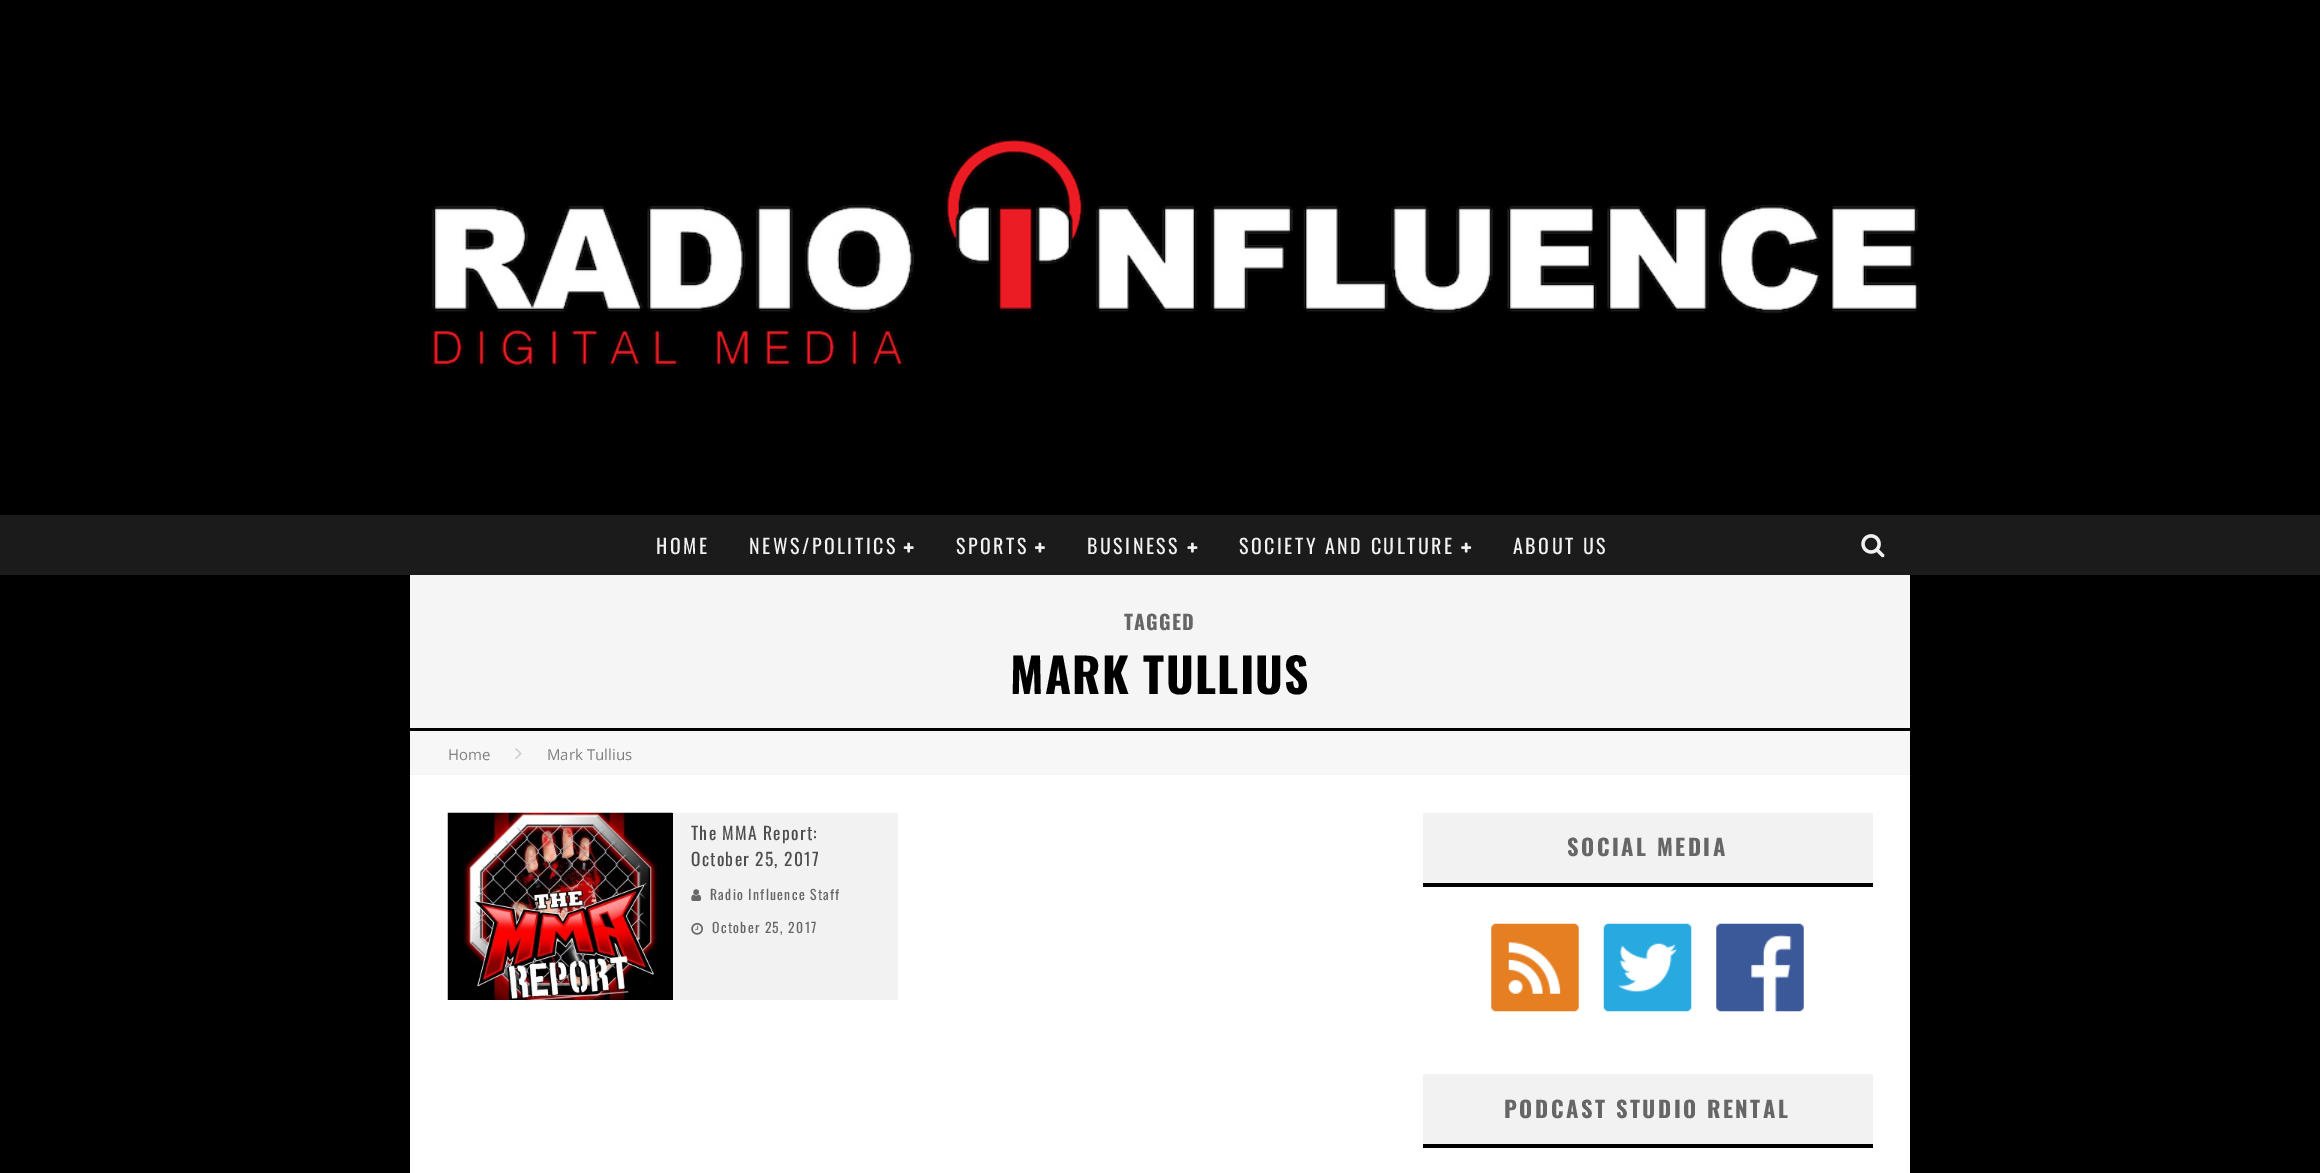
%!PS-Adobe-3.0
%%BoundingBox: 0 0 2320 1173
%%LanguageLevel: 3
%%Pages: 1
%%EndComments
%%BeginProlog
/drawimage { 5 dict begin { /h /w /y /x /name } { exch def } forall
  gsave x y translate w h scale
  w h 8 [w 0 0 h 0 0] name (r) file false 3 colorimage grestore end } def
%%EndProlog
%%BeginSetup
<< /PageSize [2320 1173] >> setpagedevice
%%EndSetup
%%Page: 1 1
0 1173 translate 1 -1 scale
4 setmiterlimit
0 setgray
0 0 2320 1173 rectfill
(images/1.raw) 431 137 1489 231 drawimage
0.106 setgray
0 515 2320 60 rectfill
(images/2.raw) 903 542 11 11 drawimage
(images/3.raw) 1035 542 10 11 drawimage
(images/4.raw) 1187 542 11 11 drawimage
(images/5.raw) 1461 542 11 11 drawimage
(images/6.raw) 1861 534 24 24 drawimage
1 setgray
410 775 1500 398 rectfill
0.961 setgray
410 575 1500 153 rectfill
0.969 setgray
410 731 1500 43 rectfill
0.953 setgray
410 774 1500 1 rectfill
(images/7.raw) 515 748 7 11 drawimage
0.949 setgray
673 813 225 187 rectfill
0 setgray
672 813 1 187 rectfill
(images/8.raw) 447 812 226 188 drawimage
(images/9.raw) 691 889 11 12 drawimage
(images/10.raw) 691 923 12 12 drawimage
0.949 setgray
1423 813 450 70 rectfill
0 setgray
1423 883 450 4 rectfill
(images/11.raw) 1491 923 88 89 drawimage
(images/12.raw) 1603 923 89 89 drawimage
(images/13.raw) 1716 923 88 89 drawimage
0.949 setgray
1423 1074 450 70 rectfill
0 setgray
1423 1144 450 4 rectfill
/Oswald-Regular [20 0 0 -20 0 0] selectfont
0.949 setgray
656 554 moveto 2.5 0 (HOME) ashow
749 554 moveto 2.5 0 (NEWS/POLITICS) ashow
956 554 moveto 2.5 0 (SPORTS) ashow
1087 554 moveto 2.5 0 (BUSINESS) ashow
1239 554 moveto 2.5 0 (SOCIETY AND CULTURE) ashow
1513 554 moveto 2.5 0 (ABOUT US) ashow
/Oswald-Bold [20 0 0 -20 0 0] selectfont
0.4 setgray
1124 630 moveto 1.25 0 (TAGGED) ashow
/Oswald-Bold [47.5 0 0 -47.5 0 0] selectfont
0 setgray
1010 694 moveto 1.25 0 (MARK TULLIUS) ashow
/OpenSans-Regular [15 0 0 -15 0 0] selectfont
0.502 setgray
448 760 moveto (Home) show
547 760 moveto (Mark Tullius) show
/Oswald-Regular [17.5 0 0 -17.5 0 0] selectfont
0.302 setgray
691 840 moveto 1.25 0 (The MMA Report:) ashow
691 866 moveto 1.25 0 (October 25, 2017) ashow
/Oswald-Regular [13.75 0 0 -13.75 0 0] selectfont
0.4 setgray
710 900 moveto 1.25 0 (Radio Influence Staff) ashow
712 933 moveto 1.25 0 (October 25, 2017) ashow
/Oswald-Bold [22.5 0 0 -22.5 0 0] selectfont
1567 856 moveto 2.5 0 (SOCIAL MEDIA) ashow
1504 1118 moveto 2.5 0 (PODCAST STUDIO RENTAL) ashow
showpage
%%EOF
